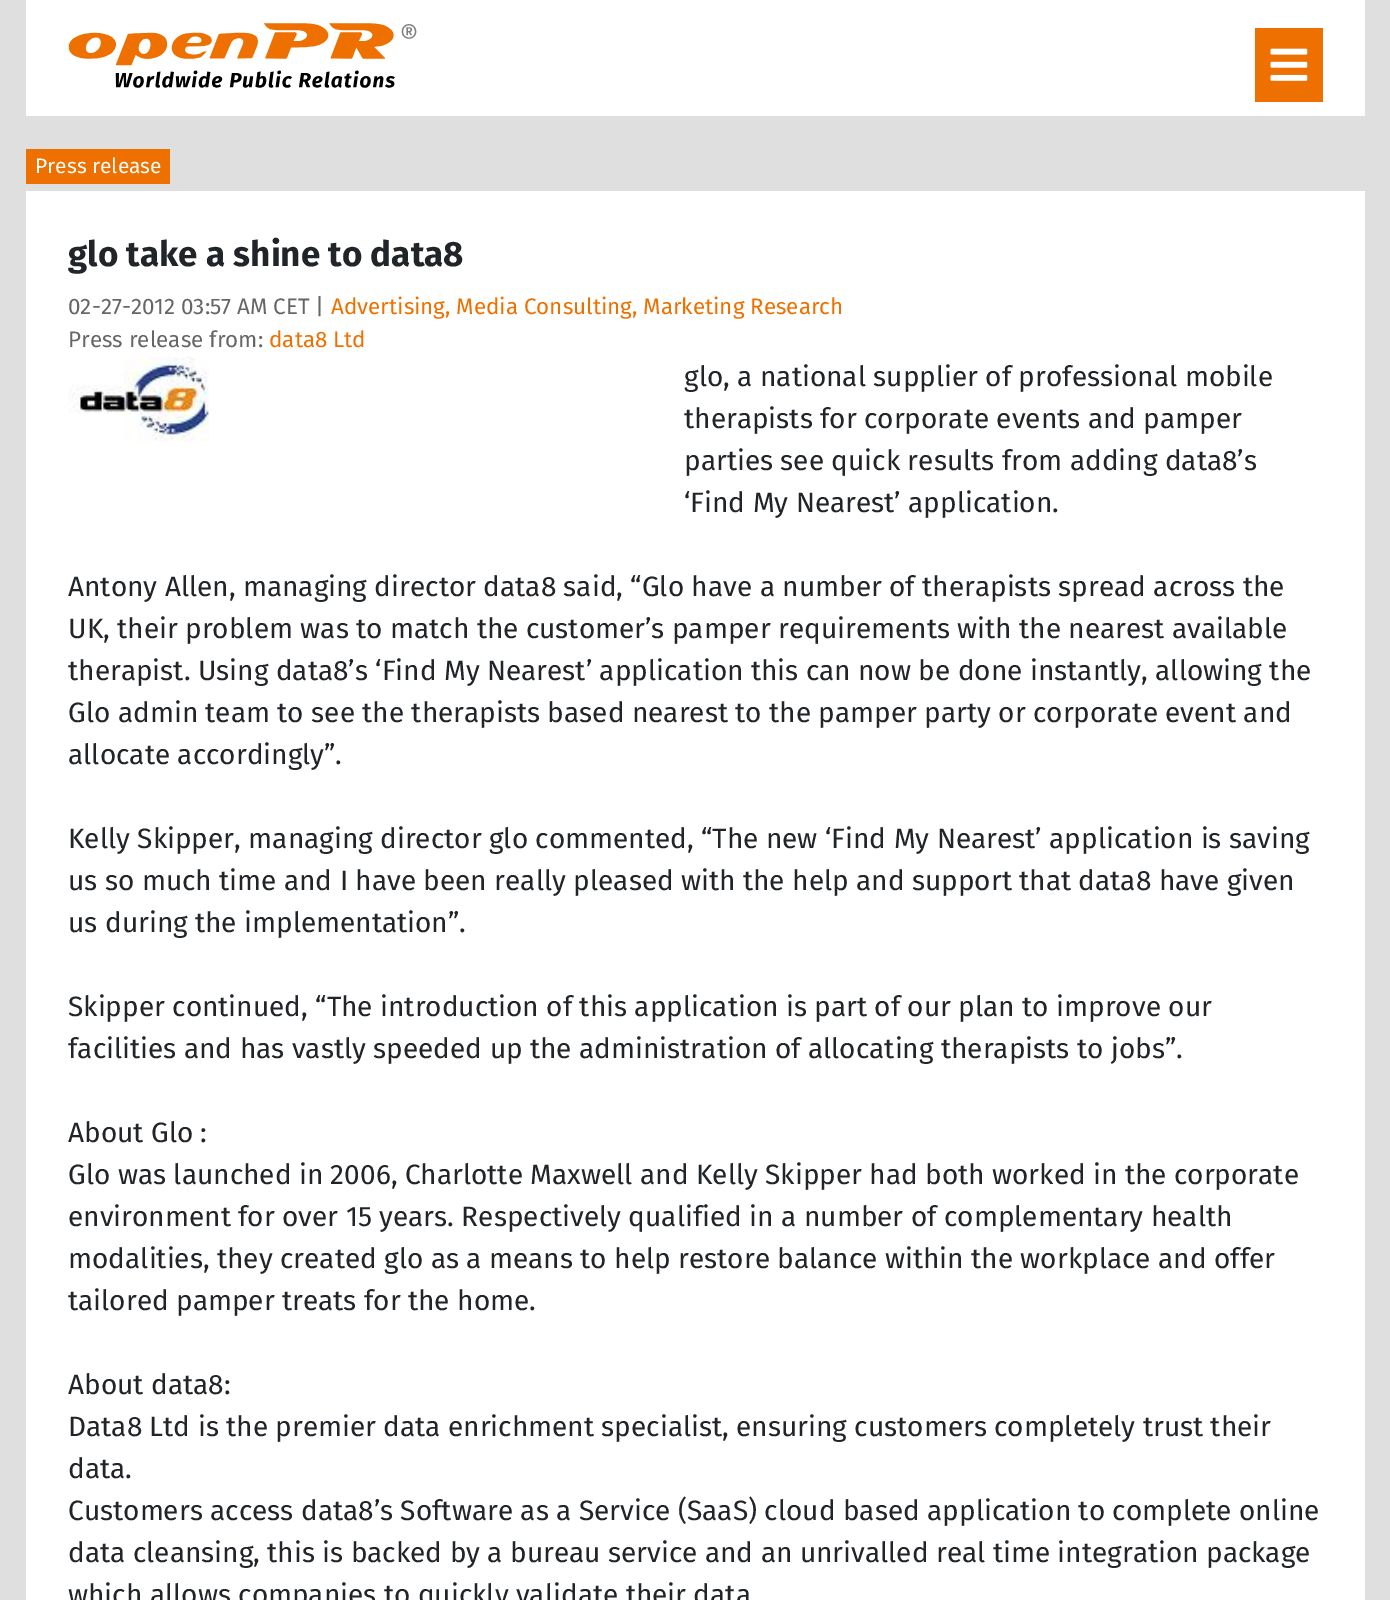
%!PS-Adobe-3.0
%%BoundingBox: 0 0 1390 1600
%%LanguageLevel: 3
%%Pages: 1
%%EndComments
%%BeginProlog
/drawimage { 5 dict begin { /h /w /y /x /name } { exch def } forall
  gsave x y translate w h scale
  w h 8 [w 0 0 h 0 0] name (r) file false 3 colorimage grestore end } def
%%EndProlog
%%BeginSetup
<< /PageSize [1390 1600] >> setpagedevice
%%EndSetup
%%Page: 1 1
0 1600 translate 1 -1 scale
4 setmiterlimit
0.875 setgray
0 0 1390 1600 rectfill
1 setgray
26 0 1339 116 rectfill
(images/1.raw) 68 23 349 65 drawimage
0.929 0.439 0 setrgbcolor
1255 28 68 74 rectfill
(images/2.raw) 1270 48 38 33 drawimage
26 149 144 35 rectfill
1 setgray
26 191 1339 1409 rectfill
(images/3.raw) 68 357 142 85 drawimage
/FiraSans-Regular [21 0 0 -21 0 0] selectfont
35 173 moveto (Press release) show
/FiraSans-Bold [35 0 0 -35 0 0] selectfont
0.129 0.145 0.161 setrgbcolor
68 266 moveto (glo take a shine to data8) show
/FiraSans-Regular [22.4 0 0 -22.4 0 0] selectfont
0.4 setgray
68 314 moveto (02-27-2012 03:57 AM CET |) show
0.929 0.439 0 setrgbcolor
331 314 moveto (Advertising, Media Consulting, Marketing Research) show
0.4 setgray
68 347 moveto (Press release from:) show
0.929 0.439 0 setrgbcolor
269 347 moveto (data8 Ltd) show
/FiraSans-Regular [28 0 0 -28 0 0] selectfont
0.129 0.145 0.161 setrgbcolor
684 386 moveto (glo, a national supplier of professional mobile) show
684 428 moveto (therapists for corporate events and pamper) show
684 470 moveto (parties see quick results from adding data8’s) show
684 512 moveto (‘Find My Nearest’ application.) show
68 596 moveto (Antony Allen, managing director data8 said, “Glo have a number of therapists spread across the) show
68 638 moveto (UK, their problem was to match the customer’s pamper requirements with the nearest available) show
68 680 moveto (therapist. Using data8’s ‘Find My Nearest’ application this can now be done instantly, allowing the) show
68 722 moveto (Glo admin team to see the therapists based nearest to the pamper party or corporate event and) show
68 764 moveto (allocate accordingly”.) show
68 848 moveto (Kelly Skipper, managing director glo commented, “The new ‘Find My Nearest’ application is saving) show
68 890 moveto (us so much time and I have been really pleased with the help and support that data8 have given) show
68 932 moveto (us during the implementation”.) show
68 1016 moveto (Skipper continued, “The introduction of this application is part of our plan to improve our) show
68 1058 moveto (facilities and has vastly speeded up the administration of allocating therapists to jobs”.) show
68 1142 moveto (About Glo :) show
68 1184 moveto (Glo was launched in 2006, Charlotte Maxwell and Kelly Skipper had both worked in the corporate) show
68 1226 moveto (environment for over 15 years. Respectively qualified in a number of complementary health) show
68 1268 moveto (modalities, they created glo as a means to help restore balance within the workplace and offer) show
68 1310 moveto (tailored pamper treats for the home.) show
68 1394 moveto (About data8:) show
68 1436 moveto (Data8 Ltd is the premier data enrichment specialist, ensuring customers completely trust their) show
68 1478 moveto (data.) show
68 1520 moveto (Customers access data8’s Software as a Service \(SaaS\) cloud based application to complete online) show
68 1562 moveto (data cleansing, this is backed by a bureau service and an unrivalled real time integration package) show
68 1604 moveto (which allows companies to quickly validate their data) show
showpage
%%EOF
